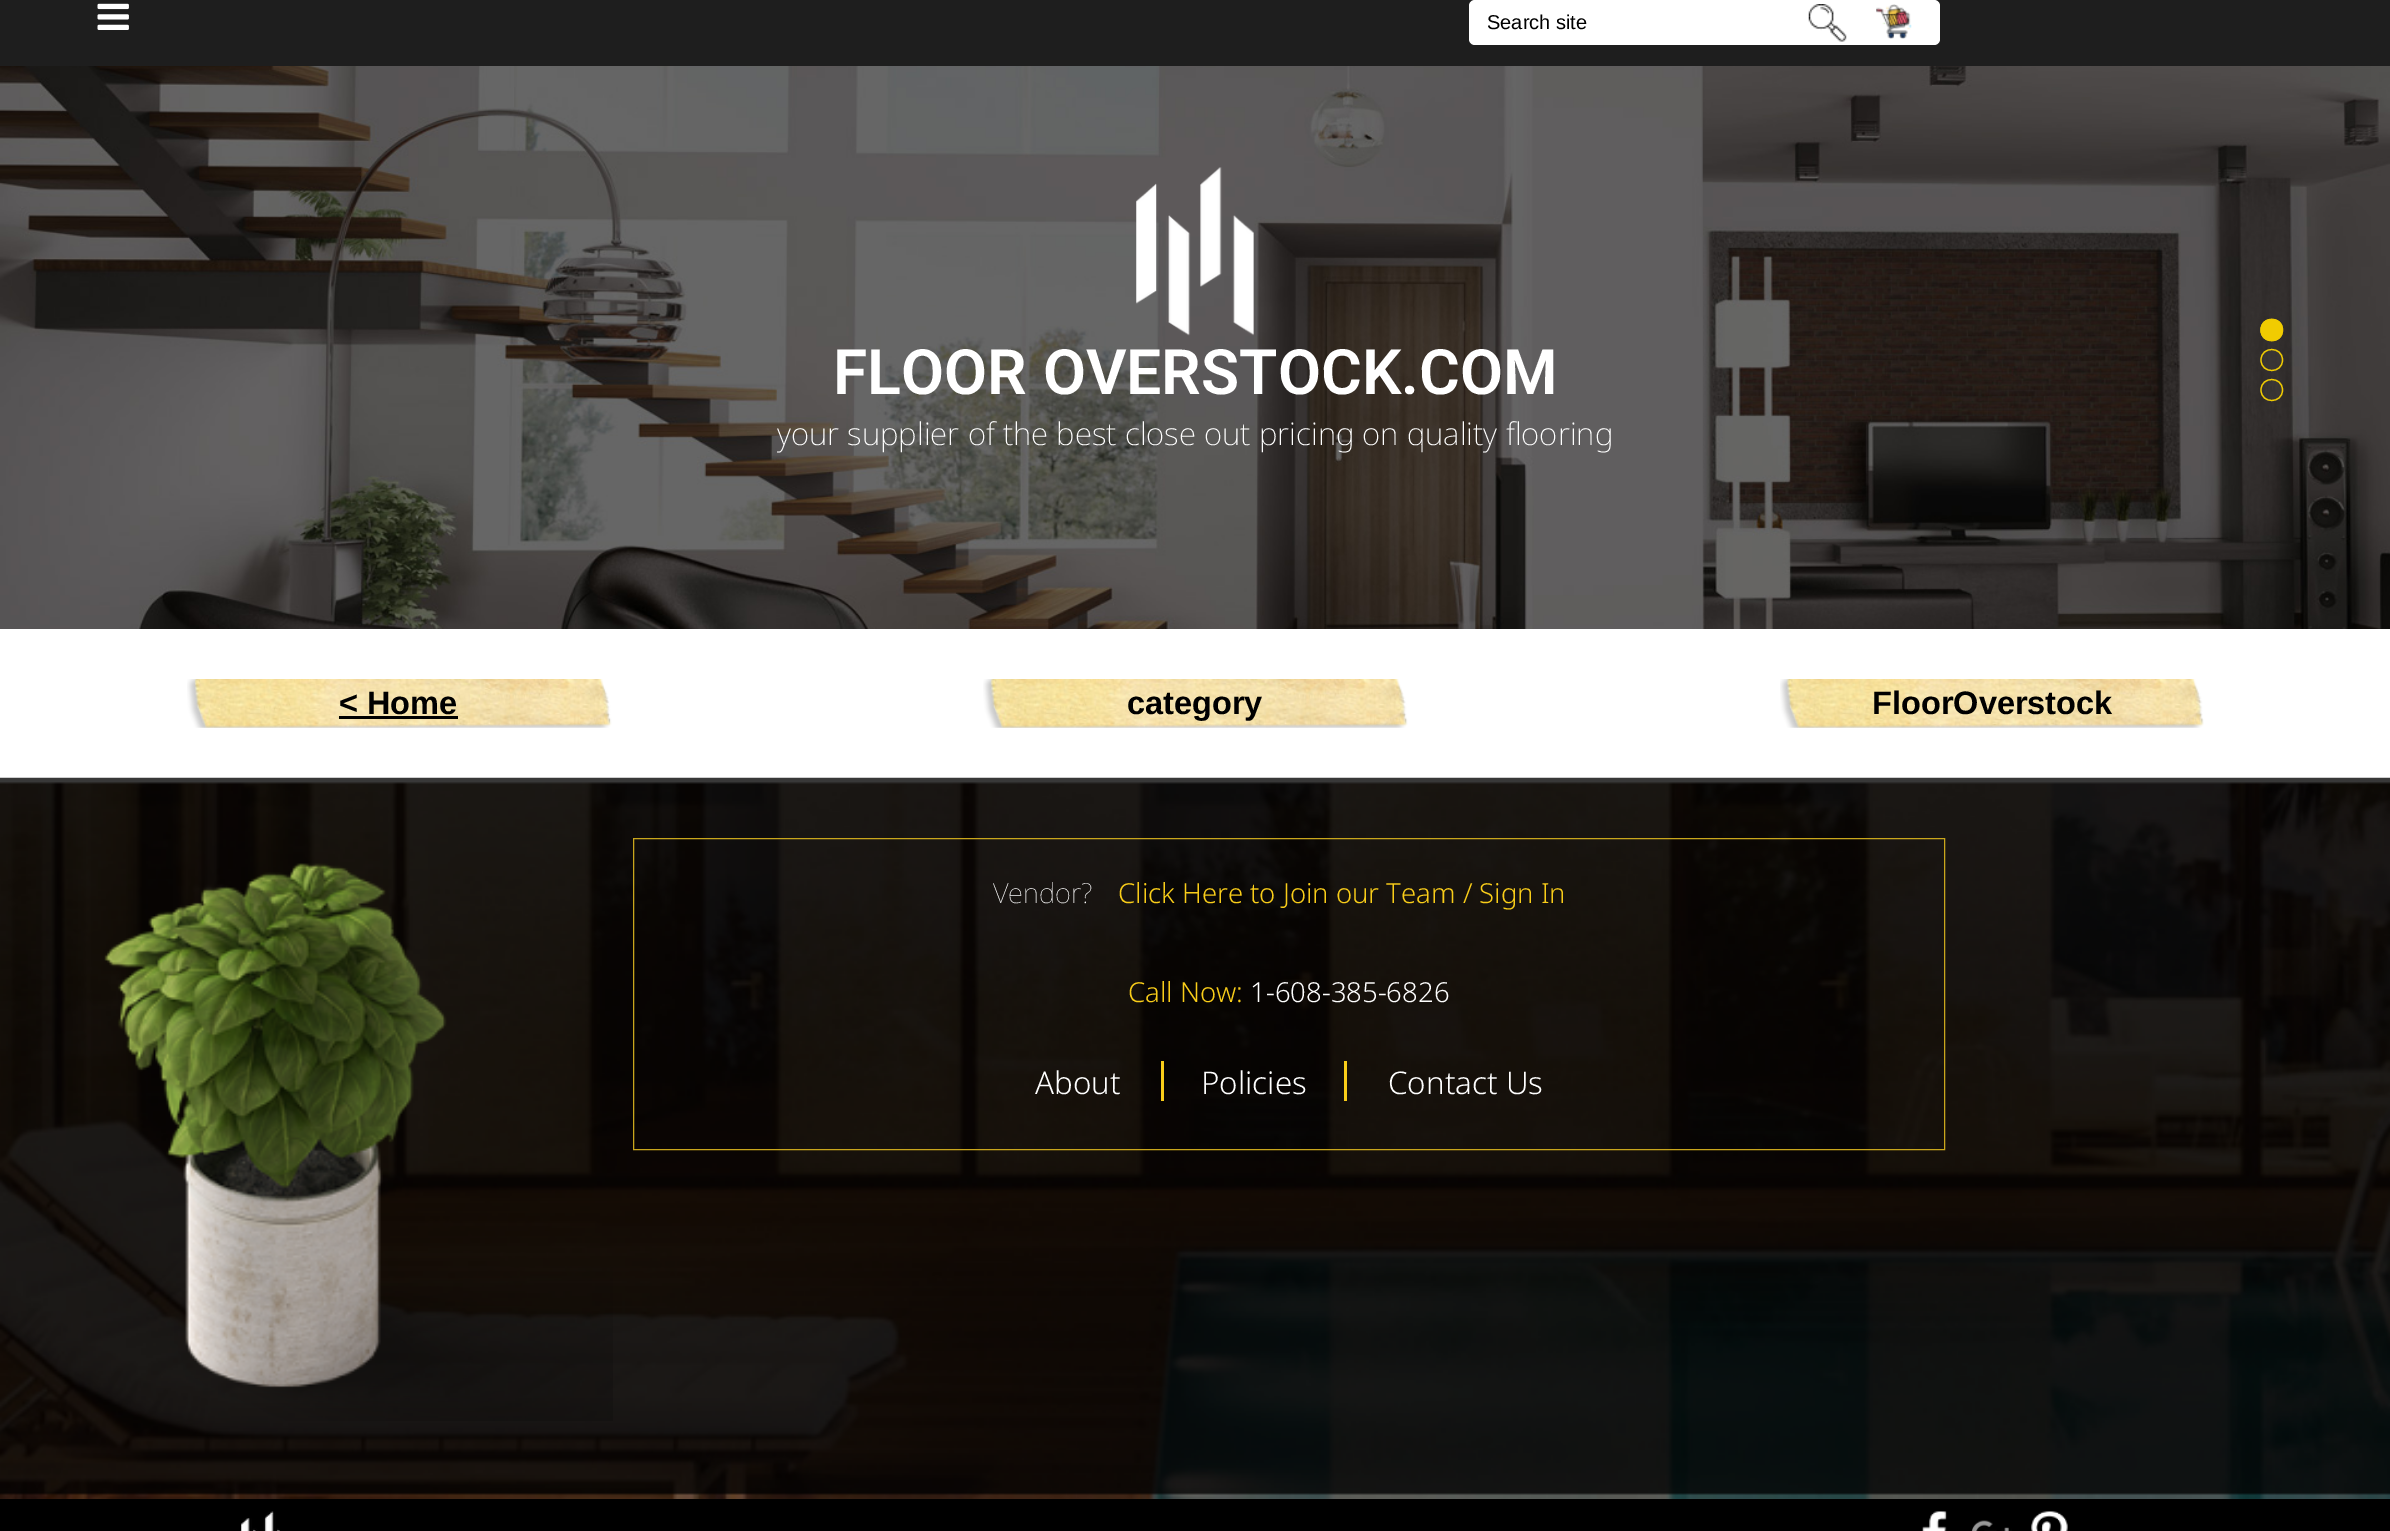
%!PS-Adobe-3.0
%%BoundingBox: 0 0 2390 1531
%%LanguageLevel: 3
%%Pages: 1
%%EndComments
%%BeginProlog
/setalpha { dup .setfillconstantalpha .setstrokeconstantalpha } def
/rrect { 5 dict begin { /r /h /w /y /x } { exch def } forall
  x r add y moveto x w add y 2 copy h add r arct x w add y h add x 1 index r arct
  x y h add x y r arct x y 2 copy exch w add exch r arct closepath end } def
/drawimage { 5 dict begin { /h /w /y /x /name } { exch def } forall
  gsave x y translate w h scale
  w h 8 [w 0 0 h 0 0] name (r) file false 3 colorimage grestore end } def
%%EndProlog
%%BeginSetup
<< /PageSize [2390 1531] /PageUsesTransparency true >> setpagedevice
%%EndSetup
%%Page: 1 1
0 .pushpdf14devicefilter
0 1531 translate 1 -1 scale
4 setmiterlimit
1 setgray
0 0 2390 1531 rectfill
(images/1.raw) 0 66 2390 563 drawimage
0.118 setgray
0 0 2390 66 rectfill
(images/2.raw) 97 3 32 27 drawimage
1 setgray
1469 0 471 45 6 rrect fill
(images/3.raw) 1808 4 39 38 drawimage
(images/4.raw) 1876 4 36 35 drawimage
(images/5.raw) 1136 167 118 169 drawimage
0.945 0.8 0.004 setrgbcolor
newpath 2283 330 moveto 2283 345 2260.5 345 2260.5 330 curveto 2260.5 315 2283 315 2283 330 curveto closepath fill
1.2 setlinewidth
newpath 2282.5 330 moveto 2282.5 344 2261 344 2261 330 curveto 2261 316 2282.5 316 2282.5 330 curveto closepath stroke
0.03 setalpha
1 setgray
newpath 2283 360 moveto 2283 375 2260.5 375 2260.5 360 curveto 2260.5 345 2283 345 2283 360 curveto closepath fill
1 setalpha
0.945 0.8 0.004 setrgbcolor
newpath 2282.5 360 moveto 2282.5 374 2261 374 2261 360 curveto 2261 346 2282.5 346 2282.5 360 curveto closepath stroke
0.03 setalpha
1 setgray
newpath 2283 390 moveto 2283 405 2260.5 405 2260.5 390 curveto 2260.5 375 2283 375 2283 390 curveto closepath fill
1 setalpha
0.945 0.8 0.004 setrgbcolor
newpath 2282.5 390 moveto 2282.5 404 2261 404 2261 390 curveto 2261 376 2282.5 376 2282.5 390 curveto closepath stroke
(images/6.raw) 187 679 425 49 drawimage
0 setgray
339 716 119 3 rectfill
(images/7.raw) 983 679 425 49 drawimage
(images/8.raw) 1780 679 424 49 drawimage
(images/9.raw) 0 777 2390 722 drawimage
(images/10.raw) 104 863 509 558 drawimage
0.788 0.651 0.11 setrgbcolor
1 setlinewidth
633.5 838.5 1311 311 rectstroke
0.976 0.804 0.098 setrgbcolor
1344 1061 3 40 rectfill
1161 1061 3 40 rectfill
0 setgray
0 1499 2390 32 rectfill
(images/11.raw) 241 1511 39 20 drawimage
(images/12.raw) 1922 1511 25 20 drawimage
(images/13.raw) 1971 1520 41 11 drawimage
(images/14.raw) 2031 1511 37 20 drawimage
/LiberationSans-Regular [20 0 0 -20 0 0] selectfont
1487 29 moveto (Search site) show
/Roboto-SemiBold [62.5 0 0 -62.5 0 0] selectfont
1 setgray
833 394 moveto (FLOOR OVERSTOCK.COM) show
/NotoSans-ExtraLight [31.25 0 0 -31.25 0 0] selectfont
777 445 moveto (your supplier of the best close out pricing on quality flooring) show
/LiberationSans-Bold [32.5 0 0 -32.5 0 0] selectfont
0 setgray
339 714 moveto (< Home) show
1127 714 moveto (category) show
1872 714 moveto (FloorOverstock) show
/NotoSans-Thin [27.5 0 0 -27.5 0 0] selectfont
1 setgray
993 903 moveto (Vendor?) show
/NotoSans-Light [27.5 0 0 -27.5 0 0] selectfont
0.976 0.804 0.098 setrgbcolor
1118 903 moveto (Click Here to Join our Team / Sign In) show
1128 1002 moveto (Call Now:) show
1 setgray
1250 1002 moveto (1-608-385-6826) show
/NotoSans-Light [31.25 0 0 -31.25 0 0] selectfont
1035 1094 moveto (About) show
1201 1094 moveto (Policies) show
1388 1094 moveto (Contact Us) show
.poppdf14devicefilter showpage
%%EOF
